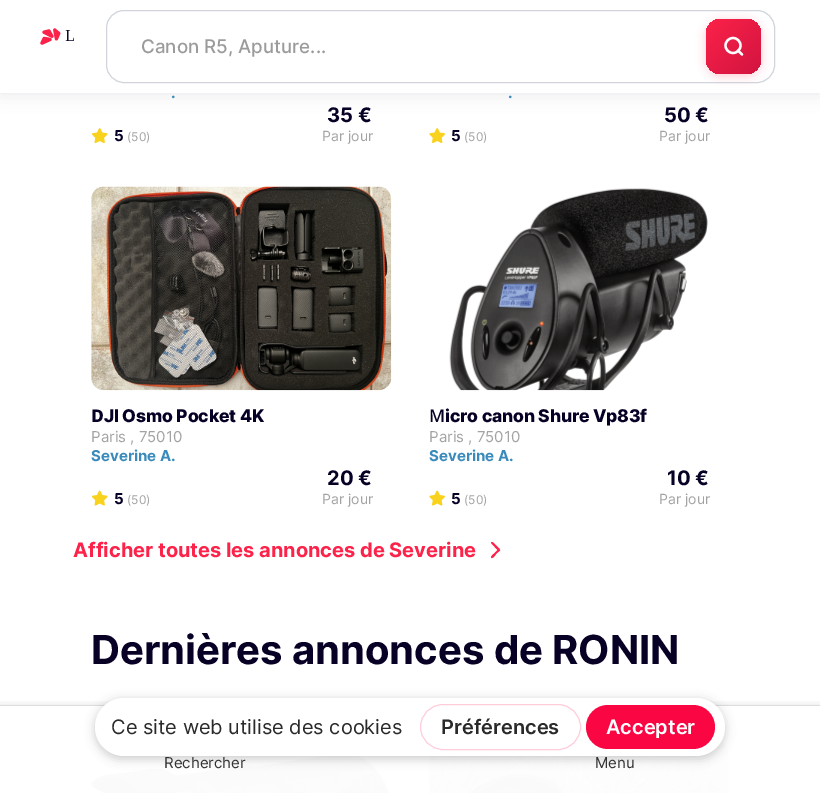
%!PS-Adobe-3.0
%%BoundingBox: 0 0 820 793
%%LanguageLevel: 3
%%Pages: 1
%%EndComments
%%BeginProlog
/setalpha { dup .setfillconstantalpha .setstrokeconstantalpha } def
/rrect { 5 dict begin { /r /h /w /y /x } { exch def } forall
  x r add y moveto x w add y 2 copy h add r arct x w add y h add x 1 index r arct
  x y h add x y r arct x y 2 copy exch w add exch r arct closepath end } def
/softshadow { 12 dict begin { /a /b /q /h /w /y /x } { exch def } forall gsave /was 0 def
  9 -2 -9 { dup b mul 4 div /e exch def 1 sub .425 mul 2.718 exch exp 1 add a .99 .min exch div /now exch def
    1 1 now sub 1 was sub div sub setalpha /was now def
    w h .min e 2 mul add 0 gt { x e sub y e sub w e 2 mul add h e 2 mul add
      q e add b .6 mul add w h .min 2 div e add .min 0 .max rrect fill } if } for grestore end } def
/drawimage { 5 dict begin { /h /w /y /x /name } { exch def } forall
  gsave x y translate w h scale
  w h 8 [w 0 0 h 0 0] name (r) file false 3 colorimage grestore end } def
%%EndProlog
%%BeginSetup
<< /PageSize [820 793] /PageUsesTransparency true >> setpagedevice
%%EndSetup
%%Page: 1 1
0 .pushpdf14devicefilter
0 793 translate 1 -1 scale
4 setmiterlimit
1 setgray
0 0 820 793 rectfill
0.031 0 0.145 setrgbcolor
0 0 820 93 0 9 0.1 softshadow
1 setgray
0 0 820 93 rectfill
(images/1.raw) 40 28 34 17 drawimage
0.82 0.835 0.859 setrgbcolor
106.5 10.5 668 72 17.5 rrect stroke
0.988 0.133 0.286 setrgbcolor
706 21 55 55 15 5 0.25 softshadow
gsave 706 19 55 55 15 rrect clip newpath
<< /ShadingType 2 /ColorSpace /DeviceRGB /Coords [706 19 761 74] /Extend [true true] /Function << /FunctionType 2 /Domain [0 1] /C0 [0.988 0.133 0.286] /C1 [0.82 0.078 0.251] /N 1 >> >> shfill grestore
1 setgray
2.3 setlinewidth
newpath 733 45.5 7.5 0 360 arc closepath stroke
1 setlinecap
1 setlinejoin
newpath 742 54.5 moveto 738 50.5 lineto stroke
(images/2.raw) 91 128 17 16 drawimage
(images/3.raw) 429 128 16 16 drawimage
(images/4.raw) 91 186 301 205 drawimage
(images/5.raw) 91 490 17 16 drawimage
(images/6.raw) 449 188 259 203 drawimage
(images/7.raw) 429 490 16 16 drawimage
0.988 0.133 0.286 setrgbcolor
newpath 491.5 543.5 moveto 497.5 550 lineto 493.5 554 lineto 493 554.5 490 557 491.5 558 curveto 493 558.5 495.5 555 496 554 curveto 500 550.5 lineto 500.5 549 496 545.5 495 544.5 curveto 495 544.5 491.5 540 491 543 curveto closepath fill
(images/8.raw) 91 751 300 42 drawimage
(images/9.raw) 428 742 301 51 drawimage
gsave
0 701 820 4 rectclip
0.031 0 0.145 setrgbcolor
0 705 820 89 0 4.5 0.1 softshadow
grestore
0.98 setalpha
1 setgray
91 742 638 51 rectfill
1 setalpha
0.867 setgray
0 705 820 1 rectfill
0 setgray
95 700 630 59 29.5 5 0.2 softshadow
1 setgray
95 698 630 58 29 rrect fill
0.996 0.804 0.851 setrgbcolor
1 setlinewidth
0 setlinecap
0 setlinejoin
420.5 704.5 160 45 22.5 rrect stroke
0.976 0.024 0.263 setrgbcolor
586 705 129 44 22 rrect fill
/Inter-Medium [18.75 0 0 -18.75 0 0] selectfont
0.608 setgray
141 53 moveto (Canon R5, Aputure...) show
/Inter-Bold [15 0 0 -15 0 0] selectfont
0.227 0.545 0.733 setrgbcolor
171 98 moveto (.) show
0.031 0 0.145 setrgbcolor
114 141 moveto (5) show
/Inter-Regular [12 0 0 -12 0 0] selectfont
0.639 setgray
127 141 moveto (\(50\)) show
/Inter-Bold [20 0 0 -20 0 0] selectfont
0.031 0 0.145 setrgbcolor
327 122 moveto (35 €) show
/Inter-Regular [14 0 0 -14 0 0] selectfont
0.639 setgray
322 141 moveto (Par jour) show
/Inter-Bold [15 0 0 -15 0 0] selectfont
0.227 0.545 0.733 setrgbcolor
508 98 moveto (.) show
0.031 0 0.145 setrgbcolor
451 141 moveto (5) show
/Inter-Regular [12 0 0 -12 0 0] selectfont
0.639 setgray
464 141 moveto (\(50\)) show
/Inter-Bold [20 0 0 -20 0 0] selectfont
0.031 0 0.145 setrgbcolor
664 122 moveto (50 €) show
/Inter-Regular [14 0 0 -14 0 0] selectfont
0.639 setgray
659 141 moveto (Par jour) show
/NotoSans-ExtraBold [17.5 0 0 -17.5 0 0] selectfont
0.031 0 0.145 setrgbcolor
91 422 moveto -0.15 0 (D) ashow
/Inter-ExtraBold [17.5 0 0 -17.5 0 0] selectfont
104 422 moveto -0.15 0 (JI Osmo Pocket 4K) ashow
/Inter-Regular [15 0 0 -15 0 0] selectfont
0.639 setgray
91 442 moveto (Paris , 75010) show
/Inter-Bold [15 0 0 -15 0 0] selectfont
0.227 0.545 0.733 setrgbcolor
91 461 moveto (Severine A.) show
0.031 0 0.145 setrgbcolor
114 504 moveto (5) show
/Inter-Regular [12 0 0 -12 0 0] selectfont
0.639 setgray
127 504 moveto (\(50\)) show
/Inter-Bold [20 0 0 -20 0 0] selectfont
0.031 0 0.145 setrgbcolor
327 485 moveto (20 €) show
/Inter-Regular [14 0 0 -14 0 0] selectfont
0.639 setgray
322 504 moveto (Par jour) show
/NotoSans-Medium [17.5 0 0 -17.5 0 0] selectfont
0.031 0 0.145 setrgbcolor
429 422 moveto -0.15 0 (M) ashow
/Inter-ExtraBold [17.5 0 0 -17.5 0 0] selectfont
445 422 moveto -0.15 0 (icro canon Shure Vp83f) ashow
/Inter-Regular [15 0 0 -15 0 0] selectfont
0.639 setgray
429 442 moveto (Paris , 75010) show
/Inter-Bold [15 0 0 -15 0 0] selectfont
0.227 0.545 0.733 setrgbcolor
429 461 moveto (Severine A.) show
0.031 0 0.145 setrgbcolor
451 504 moveto (5) show
/Inter-Regular [12 0 0 -12 0 0] selectfont
0.639 setgray
464 504 moveto (\(50\)) show
/Inter-Bold [20 0 0 -20 0 0] selectfont
0.031 0 0.145 setrgbcolor
667 485 moveto (10 €) show
/Inter-Regular [14 0 0 -14 0 0] selectfont
0.639 setgray
659 504 moveto (Par jour) show
/Inter-Bold [20 0 0 -20 0 0] selectfont
0.988 0.133 0.286 setrgbcolor
73 557 moveto (Afficher toutes les annonces de Severine) show
/Inter-Bold [40 0 0 -40 0 0] selectfont
0.031 0 0.145 setrgbcolor
91 664 moveto (Dernières annonces de RONIN) show
/Inter-Regular [20 0 0 -20 0 0] selectfont
0.165 setgray
111 734 moveto (Ce site web utilise des cookies) show
/Inter-SemiBold [20 0 0 -20 0 0] selectfont
441 734 moveto (Préférences) show
1 setgray
606 734 moveto (Accepter) show
/Inter-Regular [15 0 0 -15 0 0] selectfont
0.2 setgray
164 768 moveto (Rechercher) show
595 768 moveto (Menu) show
.poppdf14devicefilter showpage
%%EOF
